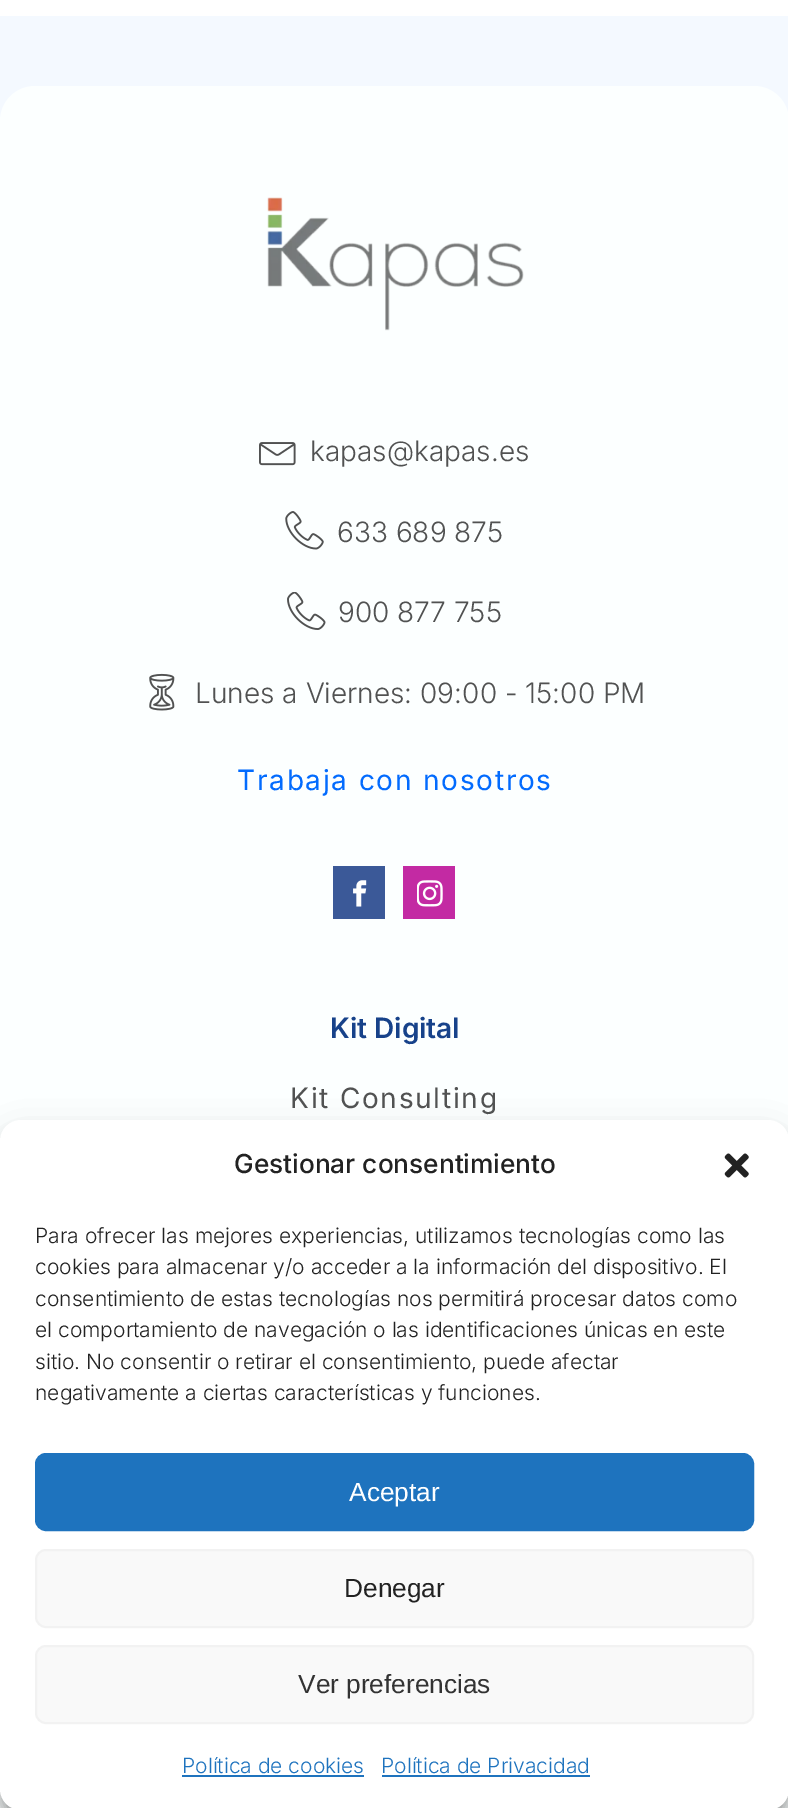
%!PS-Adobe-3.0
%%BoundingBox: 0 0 788 1808
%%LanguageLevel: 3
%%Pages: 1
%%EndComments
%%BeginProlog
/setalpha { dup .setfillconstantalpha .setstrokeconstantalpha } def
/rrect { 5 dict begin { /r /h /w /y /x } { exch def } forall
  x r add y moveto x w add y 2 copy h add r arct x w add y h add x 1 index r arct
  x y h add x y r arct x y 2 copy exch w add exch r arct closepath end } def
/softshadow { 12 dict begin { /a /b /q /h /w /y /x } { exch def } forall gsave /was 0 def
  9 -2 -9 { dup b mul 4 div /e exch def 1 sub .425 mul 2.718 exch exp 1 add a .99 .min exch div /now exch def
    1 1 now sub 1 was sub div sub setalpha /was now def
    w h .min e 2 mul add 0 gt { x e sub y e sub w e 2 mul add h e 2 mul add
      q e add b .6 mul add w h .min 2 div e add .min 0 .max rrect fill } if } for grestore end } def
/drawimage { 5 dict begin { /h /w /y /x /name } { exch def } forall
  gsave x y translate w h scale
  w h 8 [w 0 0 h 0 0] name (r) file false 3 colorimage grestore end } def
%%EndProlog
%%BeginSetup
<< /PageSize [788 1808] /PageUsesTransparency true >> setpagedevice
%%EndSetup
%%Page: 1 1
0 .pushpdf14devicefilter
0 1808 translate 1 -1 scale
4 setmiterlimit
0.957 0.976 1 setrgbcolor
0 0 788 1808 rectfill
1 setgray
0 0 788 16 rectfill
0.988 1 1 setrgbcolor
0 86 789 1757 35 rrect fill
(images/1.raw) 267 197 257 134 drawimage
(images/2.raw) 259 442 37 24 drawimage
(images/3.raw) 285 511 39 39 drawimage
(images/4.raw) 287 592 39 38 drawimage
(images/5.raw) 149 673 26 38 drawimage
0.231 0.349 0.596 setrgbcolor
333 866 52 53 rectfill
(images/6.raw) 353 880 14 27 drawimage
0.765 0.165 0.639 setrgbcolor
403 866 52 53 rectfill
(images/7.raw) 417 880 26 27 drawimage
0 setgray
0 1131 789 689 21 5 0.23 softshadow
0 1138 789 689 21 17.5 0.19 softshadow
1 setgray
0 1120 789 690 21 rrect fill
(images/8.raw) 724 1153 25 25 drawimage
0.118 0.451 0.745 setrgbcolor
36 1454 717 76 10 rrect gsave fill grestore
2 setlinewidth
stroke
0.976 setgray
36 1550 717 77 10 rrect gsave fill grestore
0.949 setgray
stroke
0.976 setgray
36 1646 717 77 10 rrect gsave fill grestore
0.949 setgray
stroke
0.118 0.451 0.745 setrgbcolor
182 1775 182 2 rectfill
382 1775 208 2 rectfill
/Inter-Light [28 0 0 -28 0 0] selectfont
0.318 0.322 0.322 setrgbcolor
310 461 moveto (kapas@kapas.es) show
337 542 moveto (633 689 875) show
338 622 moveto (900 877 755) show
195 703 moveto (Lunes a Viernes: 09:00 - 15:00 PM) show
/Inter-Regular [28 0 0 -28 0 0] selectfont
0.008 0.42 0.996 setrgbcolor
237 790 moveto 1.75 0 (Trabaja con nosotros) ashow
/Inter-SemiBold [28 0 0 -28 0 0] selectfont
0.09 0.259 0.541 setrgbcolor
330 1038 moveto (Kit Digital) show
/Inter-Regular [28 0 0 -28 0 0] selectfont
0.318 0.322 0.322 setrgbcolor
290 1108 moveto 1.75 0 (Kit Consulting) ashow
/Inter-Medium [26.25 0 0 -26.25 0 0] selectfont
0.133 setgray
234 1173 moveto (Gestionar consentimiento) show
/Inter-Light [21 0 0 -21 0 0] selectfont
35 1243 moveto (Para ofrecer las mejores experiencias, utilizamos tecnologías como las) show
35 1274 moveto (cookies para almacenar y/o acceder a la información del dispositivo. El) show
35 1306 moveto (consentimiento de estas tecnologías nos permitirá procesar datos como) show
35 1337 moveto (el comportamiento de navegación o las identificaciones únicas en este) show
35 1369 moveto (sitio. No consentir o retirar el consentimiento, puede afectar) show
35 1400 moveto (negativamente a ciertas características y funciones.) show
/LiberationSans-Regular [26.25 0 0 -26.25 0 0] selectfont
1 setgray
349 1501 moveto (Aceptar) show
0.133 setgray
344 1597 moveto (Denegar) show
0.2 setgray
298 1693 moveto (Ver preferencias) show
/Inter-Light [21 0 0 -21 0 0] selectfont
0.118 0.451 0.745 setrgbcolor
182 1773 moveto (Política de cookies) show
381 1773 moveto (Política de Privacidad) show
.poppdf14devicefilter showpage
%%EOF
